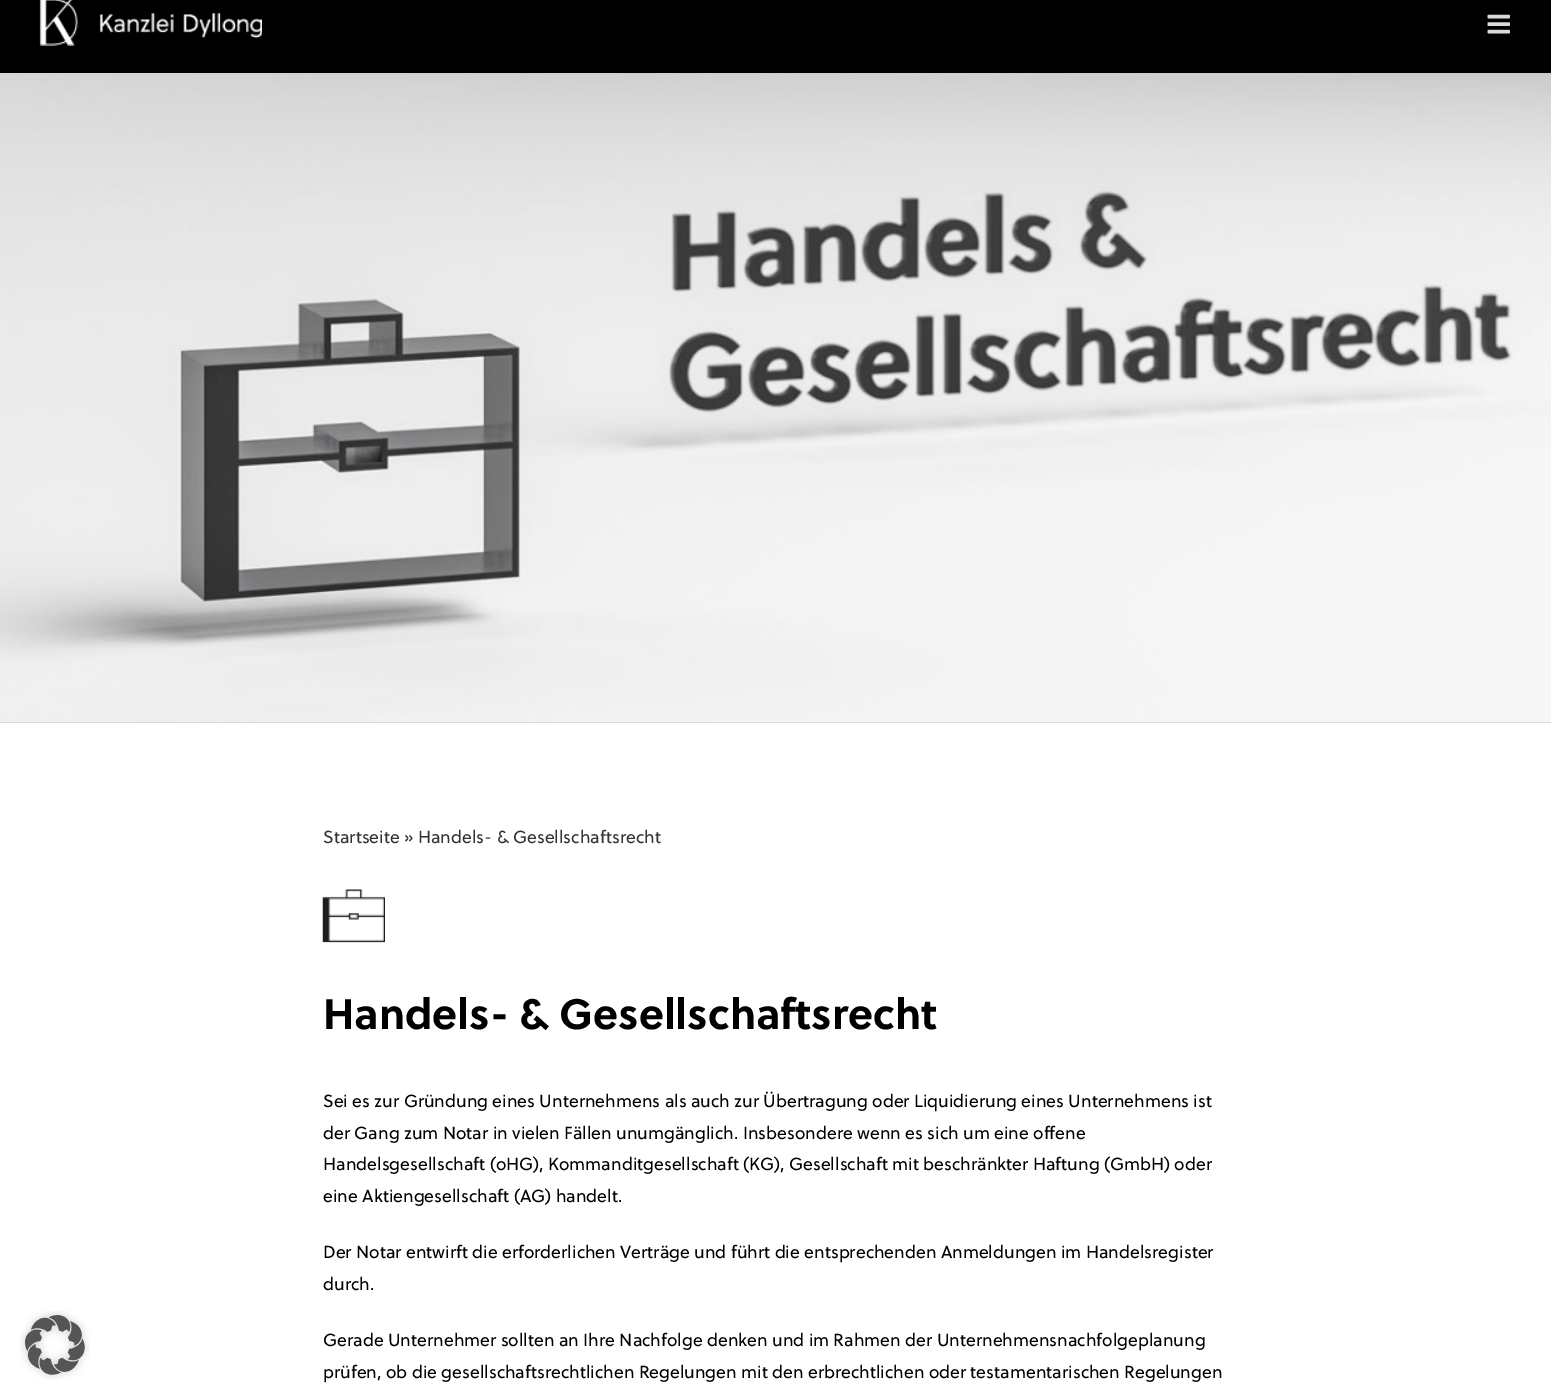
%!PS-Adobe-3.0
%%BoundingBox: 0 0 1551 1399
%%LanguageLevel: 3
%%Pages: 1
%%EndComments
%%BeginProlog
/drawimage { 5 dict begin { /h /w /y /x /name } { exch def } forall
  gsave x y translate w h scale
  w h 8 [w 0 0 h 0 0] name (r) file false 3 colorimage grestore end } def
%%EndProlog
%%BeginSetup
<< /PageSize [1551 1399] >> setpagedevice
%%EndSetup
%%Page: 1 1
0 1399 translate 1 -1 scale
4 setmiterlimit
1 setgray
0 0 1551 1399 rectfill
(images/1.raw) 20 1310 70 70 drawimage
0 setgray
0 0 1551 73 rectfill
(images/2.raw) 39 0 223 46 drawimage
(images/3.raw) 1487 14 23 20 drawimage
0.855 0.851 0.875 setrgbcolor
0 722 1551 1 rectfill
(images/4.raw) 0 73 1551 649 drawimage
(images/5.raw) 322 889 63 54 drawimage
/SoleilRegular-Regular [17.5 0 0 -17.5 0 0] selectfont
0.2 setgray
323 843 moveto (Startseite » Handels- & Gesellschaftsrecht) show
/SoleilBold-Regular [42.5 0 0 -42.5 0 0] selectfont
0 setgray
323 1029 moveto (Handels- & Gesellschaftsrecht) show
/SoleilRegular-Regular [17.5 0 0 -17.5 0 0] selectfont
323 1107 moveto (Sei es zur Gründung eines Unternehmens als auch zur Übertragung oder Liquidierung eines Unternehmens ist) show
323 1139 moveto (der Gang zum Notar in vielen Fällen unumgänglich. Insbesondere wenn es sich um eine offene) show
323 1170 moveto (Handelsgesellschaft \(oHG\), Kommanditgesellschaft \(KG\), Gesellschaft mit beschränkter Haftung \(GmbH\) oder) show
323 1202 moveto (eine Aktiengesellschaft \(AG\) handelt.) show
323 1258 moveto (Der Notar entwirft die erforderlichen Verträge und führt die entsprechenden Anmeldungen im Handelsregister) show
323 1290 moveto (durch.) show
323 1346 moveto (Gerade Unternehmer sollten an Ihre Nachfolge denken und im Rahmen der Unternehmensnachfolgeplanung) show
323 1378 moveto (prüfen, ob die gesellschaftsrechtlichen Regelungen mit den erbrechtlichen oder testamentarischen Regelungen) show
showpage
%%EOF
